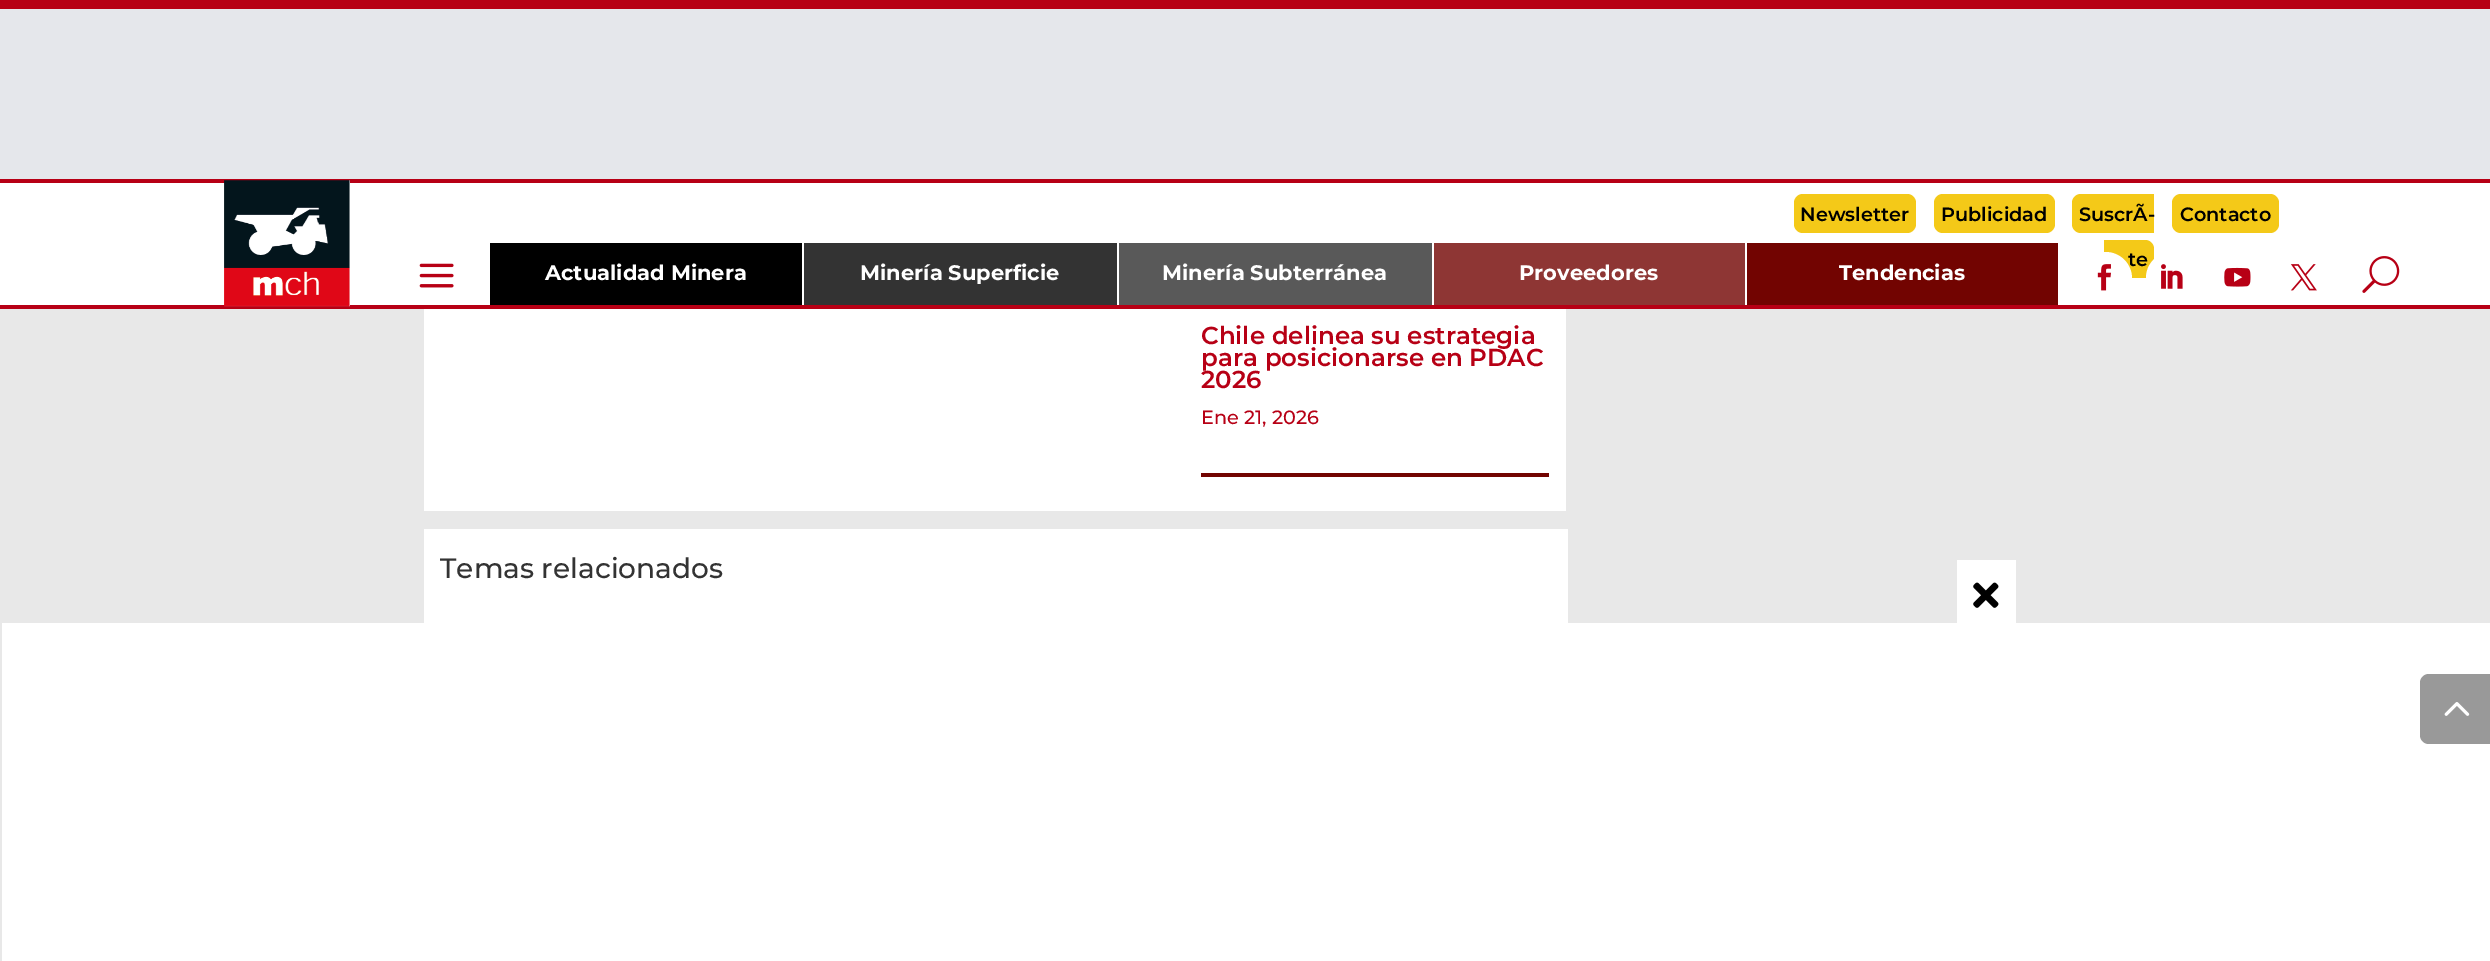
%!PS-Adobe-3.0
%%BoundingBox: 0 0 2490 961
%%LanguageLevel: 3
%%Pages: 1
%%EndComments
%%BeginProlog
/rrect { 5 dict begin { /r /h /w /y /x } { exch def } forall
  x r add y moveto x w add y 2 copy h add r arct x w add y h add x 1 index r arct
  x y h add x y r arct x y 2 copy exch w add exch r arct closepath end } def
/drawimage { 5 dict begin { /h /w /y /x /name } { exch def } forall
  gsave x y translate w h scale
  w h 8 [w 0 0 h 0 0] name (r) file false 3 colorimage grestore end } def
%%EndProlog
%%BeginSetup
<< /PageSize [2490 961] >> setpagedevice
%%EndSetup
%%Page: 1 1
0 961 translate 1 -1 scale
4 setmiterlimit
0.91 setgray
0 0 2490 961 rectfill
0.718 0 0.082 setrgbcolor
0 0 2490 9 rectfill
0.898 0.906 0.922 setrgbcolor
0 9 2490 170 rectfill
1 setgray
0 183 2490 122 rectfill
0.718 0 0.082 setrgbcolor
0 179 2490 4 rectfill
0 305 2490 4 rectfill
(images/1.raw) 224 180 126 127 drawimage
0.957 0.788 0.094 setrgbcolor
1794 194 122 39 9 rrect fill
1934 194 121 39 9 rrect fill
newpath 2081 194 moveto 2147 194 lineto 2147 233 lineto 2081 233 lineto 2076 233 2072 229 2072 224 curveto 2072 203 lineto 2072 198 2076 194 2081 194 curveto closepath fill
2147 194 7 39 rectfill
newpath 2104 240 moveto 2145 240 lineto 2150 240 2154 244 2154 249 curveto 2154 269 lineto 2154 274 2150 278 2145 278 curveto 2104 278 lineto closepath fill
2172 194 107 39 9 rrect fill
(images/4.raw) 2224 267 27 20 drawimage
(images/5.raw) 2290 264 27 27 drawimage
(images/6.raw) 419 263 35 25 drawimage
0 setgray
490 243 312 62 rectfill
0.2 setgray
804 243 313 62 rectfill
0.349 setgray
1119 243 313 62 rectfill
0.557 0.212 0.204 setrgbcolor
1434 243 311 62 rectfill
0.447 0.016 0.004 setrgbcolor
1747 243 311 62 rectfill
(images/7.raw) 2362 256 38 37 drawimage
1 setgray
424 309 1142 202 rectfill
0.447 0.016 0.004 setrgbcolor
1201 473 348 4 rectfill
1 setgray
424 529 1144 94 rectfill
2 623 2488 338 rectfill
1957 560 59 63 rectfill
(images/8.raw) 1973 582 26 26 drawimage
0.6 setgray
newpath 2429 674 moveto 2490 674 lineto 2490 744 lineto 2429 744 lineto 2424 744 2420 740 2420 735 curveto 2420 683 lineto 2420 678 2424 674 2429 674 curveto closepath fill
(images/9.raw) 2444 702 26 14 drawimage
/Montserrat-Thin [19.25 0 0 -19.25 0 0] selectfont
0 setgray
1800 221 moveto (Newsletter) show
1941 221 moveto (Publicidad) show
2079 221 moveto (SuscrÃ-) show
2128 266 moveto (te) show
2180 221 moveto (Contacto) show
1 setgray
newpath 2105.5 278.5 26.5 0 360 arc closepath fill
(images/2.raw) 2097 264 14 27 drawimage
2146 252 52 53 26 rrect fill
(images/3.raw) 2161 264 22 25 drawimage
/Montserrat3-Thin [21 0 0 -21 0 0] selectfont
545 280 moveto (Actualidad Minera) show
860 280 moveto (Minería Superficie) show
1162 280 moveto (Minería Subterránea) show
1519 280 moveto (Proveedores) show
1839 280 moveto (Tendencias) show
/Montserrat-Thin [24.5 0 0 -24.5 0 0] selectfont
0.718 0 0.082 setrgbcolor
1201 344 moveto (Chile delinea su estrategia) show
1201 366 moveto (para posicionarse en PDAC) show
1201 388 moveto (2026) show
/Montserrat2-Thin [19.25 0 0 -19.25 0 0] selectfont
1201 424 moveto (Ene 21, 2026) show
/Montserrat2-Thin [28 0 0 -28 0 0] selectfont
0.2 setgray
440 578 moveto (Temas relacionados) show
showpage
%%EOF
